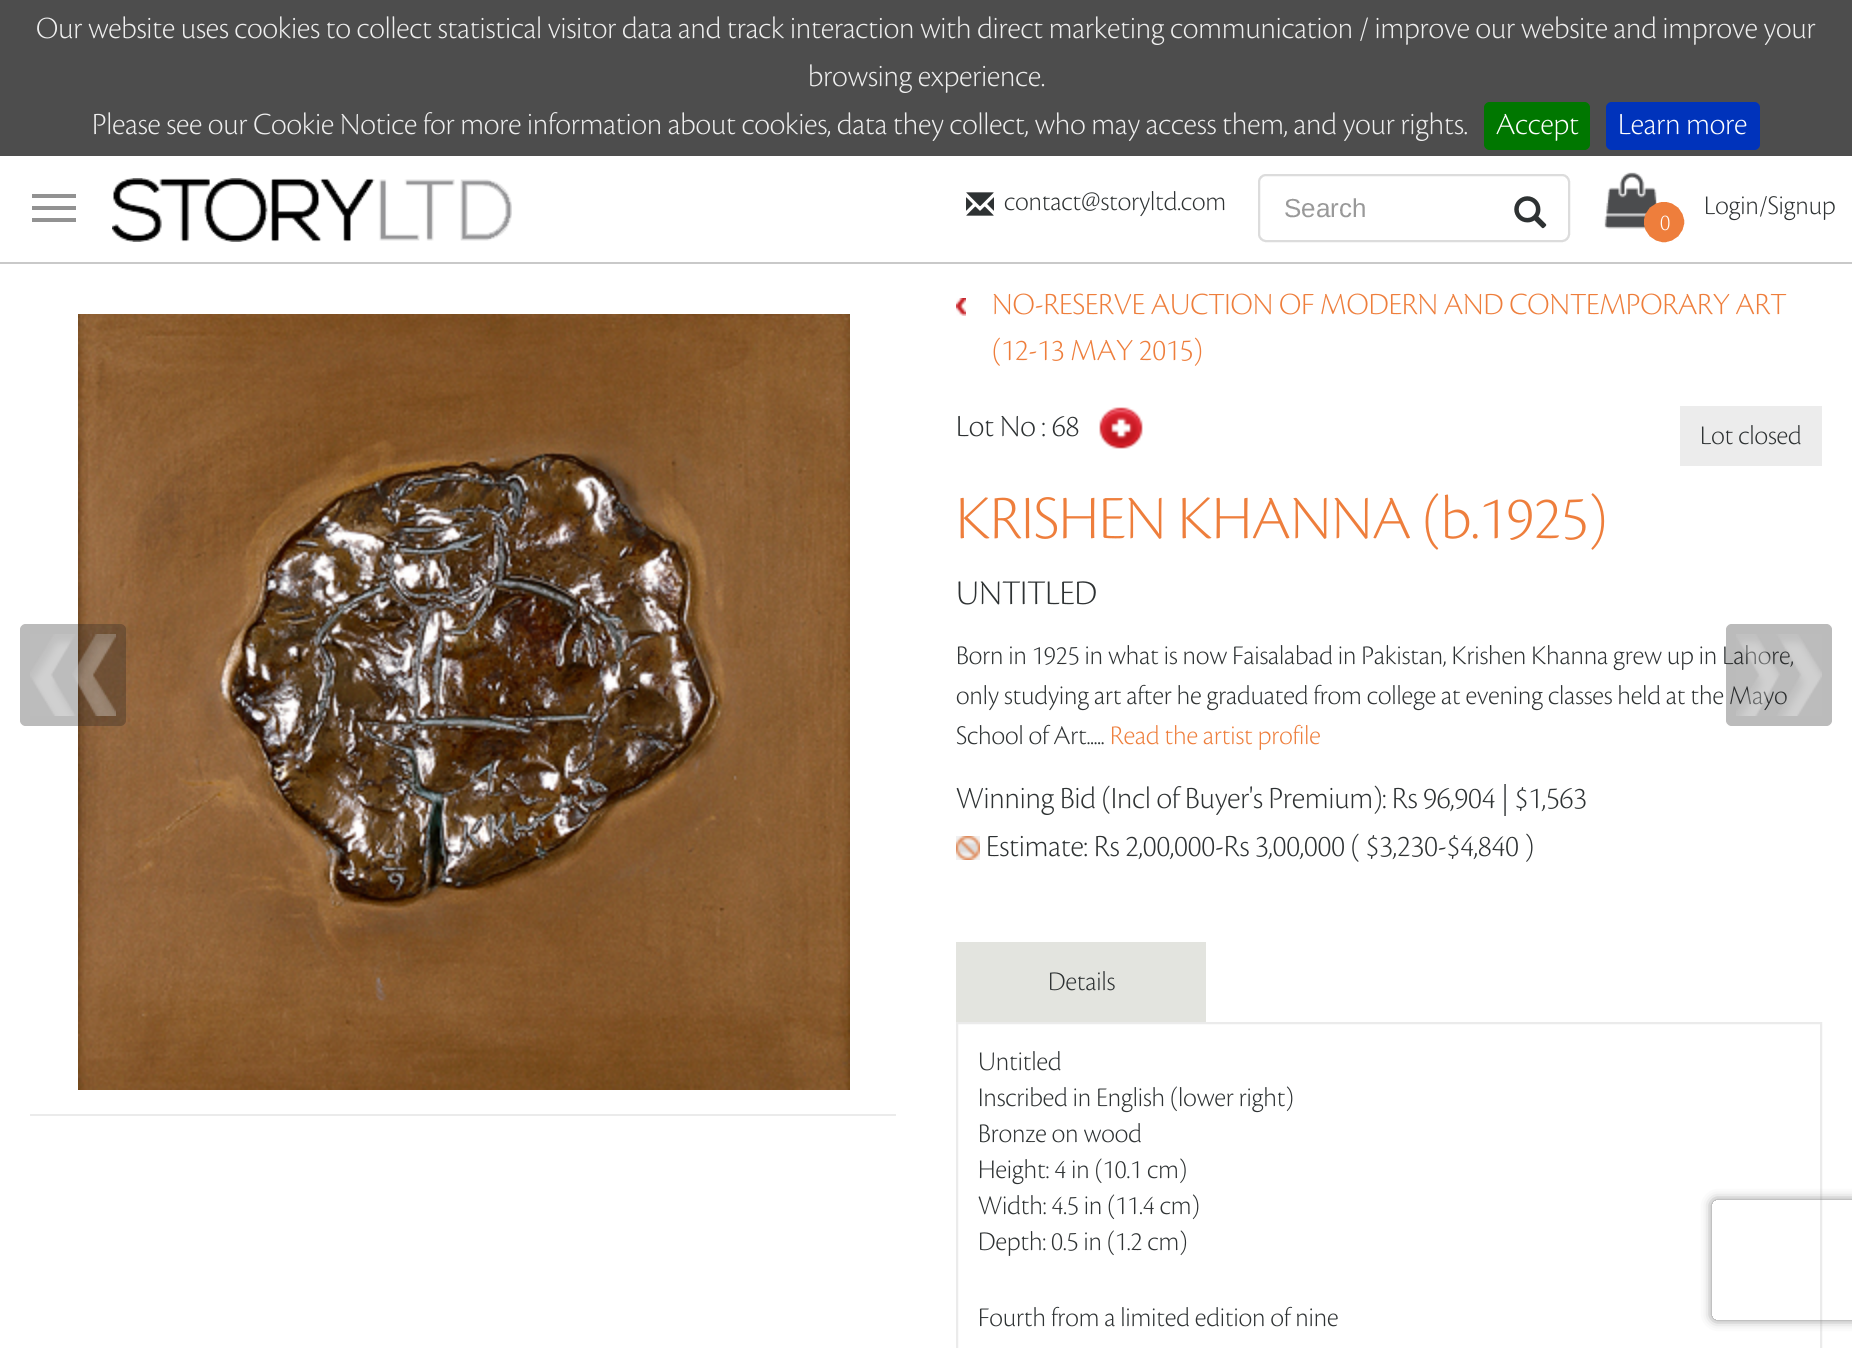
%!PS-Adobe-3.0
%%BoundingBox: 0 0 1852 1348
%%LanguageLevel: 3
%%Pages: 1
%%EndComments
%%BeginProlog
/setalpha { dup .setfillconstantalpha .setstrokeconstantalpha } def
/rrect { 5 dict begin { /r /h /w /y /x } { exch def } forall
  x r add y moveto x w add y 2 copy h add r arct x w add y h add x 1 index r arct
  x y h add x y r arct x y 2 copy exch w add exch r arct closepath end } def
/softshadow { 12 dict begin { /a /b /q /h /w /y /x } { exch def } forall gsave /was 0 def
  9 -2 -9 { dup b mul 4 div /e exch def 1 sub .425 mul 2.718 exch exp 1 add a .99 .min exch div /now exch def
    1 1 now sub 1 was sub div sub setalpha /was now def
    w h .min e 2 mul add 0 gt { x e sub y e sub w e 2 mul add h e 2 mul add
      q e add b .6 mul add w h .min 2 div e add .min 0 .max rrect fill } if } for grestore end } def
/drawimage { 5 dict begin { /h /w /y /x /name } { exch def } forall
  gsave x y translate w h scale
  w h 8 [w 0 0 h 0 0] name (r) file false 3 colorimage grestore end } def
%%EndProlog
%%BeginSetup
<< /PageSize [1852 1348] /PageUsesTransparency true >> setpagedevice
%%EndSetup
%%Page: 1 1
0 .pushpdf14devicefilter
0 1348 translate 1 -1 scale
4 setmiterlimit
1 setgray
0 0 1852 1348 rectfill
0.302 setgray
0 0 1852 156 rectfill
(images/1.raw) 37 16 1779 29 drawimage
(images/2.raw) 810 64 235 29 drawimage
(images/3.raw) 94 112 1373 29 drawimage
0 0.467 0 setrgbcolor
1484 102 106 48 6 rrect fill
(images/4.raw) 1496 113 83 28 drawimage
0 0.2 0.733 setrgbcolor
1606 102 154 48 6 rrect fill
(images/5.raw) 1620 113 127 22 drawimage
0.573 setgray
32 206 44 4 rectfill
32 194 44 4 rectfill
32 218 44 4 rectfill
(images/6.raw) 112 178 400 64 drawimage
(images/7.raw) 966 192 28 24 drawimage
(images/8.raw) 1004 191 221 26 drawimage
0.863 setgray
2 setlinewidth
1259 175 310 66 7 rrect stroke
(images/9.raw) 1514 196 33 33 drawimage
(images/10.raw) 1604 172 54 57 drawimage
0.933 0.494 0.235 setrgbcolor
newpath 1664 222 19 0 360 arc closepath gsave fill grestore
stroke
(images/11.raw) 1660 215 10 16 drawimage
(images/12.raw) 1705 196 130 25 drawimage
0.788 setgray
0 262 1852 2 rectfill
(images/13.raw) 78 314 772 776 drawimage
0.922 setgray
30 1114 866 2 rectfill
(images/14.raw) 956 298 10 18 drawimage
(images/15.raw) 993 293 794 22 drawimage
(images/16.raw) 993 337 209 29 drawimage
(images/17.raw) 958 415 87 22 drawimage
(images/18.raw) 1052 416 27 21 drawimage
(images/19.raw) 1099 407 44 42 drawimage
0.925 setgray
1680 406 142 60 rectfill
(images/20.raw) 1701 425 100 20 drawimage
(images/21.raw) 960 493 645 57 drawimage
(images/22.raw) 958 581 138 24 drawimage
(images/23.raw) 957 645 836 26 drawimage
(images/24.raw) 956 684 831 27 drawimage
(images/25.raw) 956 724 148 21 drawimage
(images/26.raw) 1111 724 209 26 drawimage
(images/27.raw) 956 785 430 30 drawimage
(images/28.raw) 1394 784 192 32 drawimage
(images/29.raw) 956 836 24 24 drawimage
(images/30.raw) 988 835 99 22 drawimage
(images/31.raw) 1096 833 437 29 drawimage
0.89 0.894 0.875 setrgbcolor
956 942 250 80 rectfill
(images/32.raw) 1049 971 66 20 drawimage
0.922 setgray
957 1023 864 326 rectstroke
(images/33.raw) 979 1051 82 20 drawimage
(images/34.raw) 979 1086 314 27 drawimage
(images/35.raw) 979 1123 162 20 drawimage
(images/36.raw) 979 1158 207 27 drawimage
(images/37.raw) 978 1194 221 26 drawimage
(images/38.raw) 979 1230 208 26 drawimage
(images/39.raw) 979 1306 359 21 drawimage
0.3 setalpha
0.122 0.118 0.118 setrgbcolor
20 624 106 102 6 rrect fill
1 setalpha
(images/40.raw) 30 634 86 82 drawimage
0.3 setalpha
1726 624 106 102 6 rrect fill
1 setalpha
(images/41.raw) 1736 634 86 82 drawimage
gsave
newpath 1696 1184 moveto 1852 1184 lineto 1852 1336 lineto 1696 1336 lineto closepath 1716 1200 moveto 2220 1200 lineto 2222 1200 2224 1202 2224 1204 curveto 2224 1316 lineto 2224 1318 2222 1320 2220 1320 curveto 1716 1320 lineto 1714 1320 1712 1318 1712 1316 curveto 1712 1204 lineto 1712 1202 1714 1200 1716 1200 curveto closepath eoclip newpath
0.502 setgray
1712 1200 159 120 4 5 1 softshadow
grestore
/LiberationSans-Regular [26 0 0 -26 0 0] selectfont
0.6 setgray
1284 217 moveto (Search) show
.poppdf14devicefilter showpage
%%EOF
